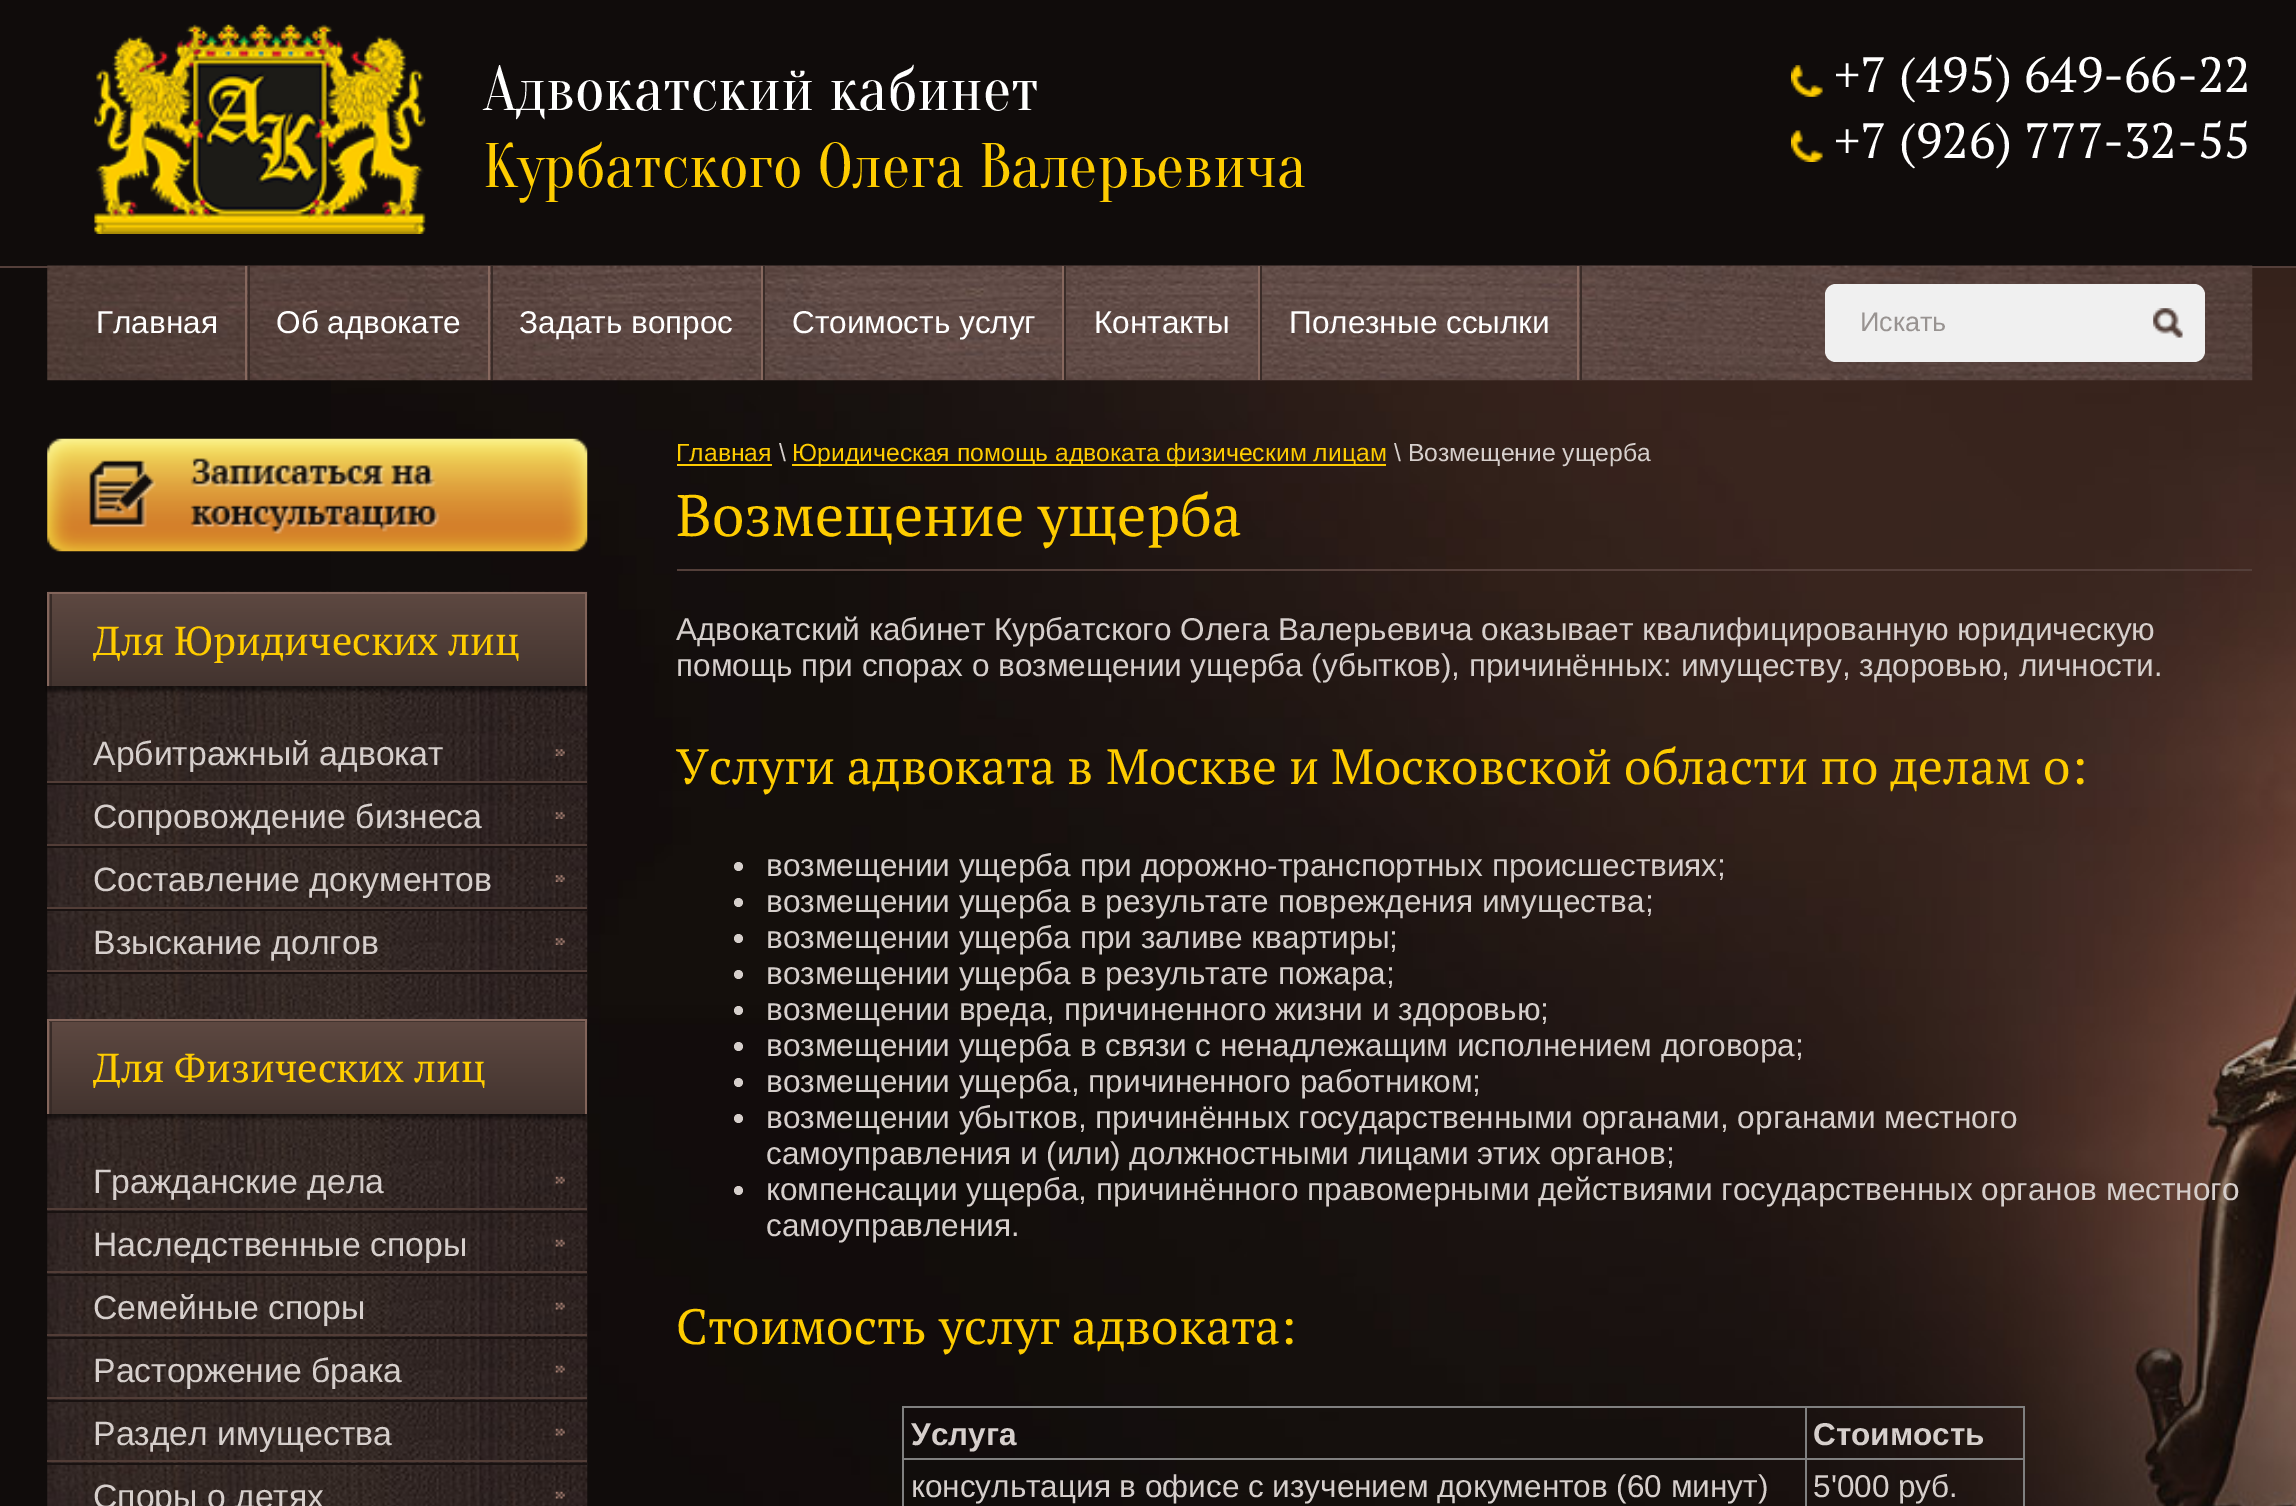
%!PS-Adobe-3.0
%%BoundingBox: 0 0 2296 1506
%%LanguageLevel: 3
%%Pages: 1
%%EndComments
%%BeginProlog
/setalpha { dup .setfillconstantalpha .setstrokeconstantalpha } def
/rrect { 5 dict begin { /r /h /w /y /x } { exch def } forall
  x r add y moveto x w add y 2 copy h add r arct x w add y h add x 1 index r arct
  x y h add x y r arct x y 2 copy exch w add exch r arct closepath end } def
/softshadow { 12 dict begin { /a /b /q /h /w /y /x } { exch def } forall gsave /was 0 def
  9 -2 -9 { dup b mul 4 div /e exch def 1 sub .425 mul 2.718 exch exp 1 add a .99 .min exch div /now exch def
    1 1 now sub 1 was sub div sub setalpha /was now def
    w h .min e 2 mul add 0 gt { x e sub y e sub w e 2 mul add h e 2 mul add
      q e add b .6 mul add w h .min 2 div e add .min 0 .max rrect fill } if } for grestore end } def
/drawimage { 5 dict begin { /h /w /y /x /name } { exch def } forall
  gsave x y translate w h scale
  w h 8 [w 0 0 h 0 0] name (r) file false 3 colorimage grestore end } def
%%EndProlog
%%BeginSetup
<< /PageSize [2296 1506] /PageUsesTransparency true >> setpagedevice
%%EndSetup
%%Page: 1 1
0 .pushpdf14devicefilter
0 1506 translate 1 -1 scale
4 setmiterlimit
0.063 0.047 0.043 setrgbcolor
0 0 2296 1506 rectfill
(images/1.raw) 331 268 1965 1238 drawimage
(images/2.raw) 94 24 332 210 drawimage
(images/3.raw) 1791 65 32 32 drawimage
(images/4.raw) 1791 130 32 32 drawimage
0.329 0.247 0.227 setrgbcolor
0 266 2296 2 rectfill
(images/5.raw) 47 265 2206 116 drawimage
0.227 0.173 0.157 setrgbcolor
248 266 2 114 rectfill
0.529 0.408 0.369 setrgbcolor
245 266 2 114 rectfill
0.227 0.173 0.157 setrgbcolor
491 266 2 114 rectfill
0.529 0.408 0.369 setrgbcolor
488 266 2 114 rectfill
0.227 0.173 0.157 setrgbcolor
763 266 2 114 rectfill
0.529 0.408 0.369 setrgbcolor
761 266 2 114 rectfill
0.227 0.173 0.157 setrgbcolor
1064 266 2 114 rectfill
0.529 0.408 0.369 setrgbcolor
1062 266 2 114 rectfill
0.227 0.173 0.157 setrgbcolor
1260 266 2 114 rectfill
0.529 0.408 0.369 setrgbcolor
1258 266 2 114 rectfill
0.227 0.173 0.157 setrgbcolor
1580 266 2 114 rectfill
0.529 0.408 0.369 setrgbcolor
1577 266 2 114 rectfill
0.941 setgray
1825 284 380 78 11 rrect fill
(images/6.raw) 2153 308 30 30 drawimage
(images/7.raw) 47 438 541 114 drawimage
(images/8.raw) 47 591 541 429 drawimage
0 setgray
47 596 540 95 0 2 0.57 softshadow
gsave newpath 49 594 moveto 585 594 lineto 585 686 lineto 49 686 lineto closepath clip newpath
<< /ShadingType 2 /ColorSpace /DeviceRGB /Coords [317 594 317 686] /Extend [true true] /Function << /FunctionType 2 /Domain [0 1] /C0 [0.365 0.282 0.255] /C1 [0.263 0.204 0.184] /N 1 >> >> shfill grestore
0.22 0.169 0.153 setrgbcolor
50 594 2 92 rectfill
0.514 0.396 0.357 setrgbcolor
47 592 540 2 rectfill
0.51 0.392 0.353 setrgbcolor
585 592 2 94 rectfill
0.518 0.4 0.361 setrgbcolor
47 592 2 94 rectfill
0.322 0.239 0.216 setrgbcolor
47 781 540 2 rectfill
0.098 0.071 0.067 setrgbcolor
47 783 540 2 rectfill
(images/9.raw) 555 749 10 7 drawimage
0.322 0.239 0.216 setrgbcolor
47 844 540 2 rectfill
0.098 0.071 0.067 setrgbcolor
47 846 540 2 rectfill
(images/10.raw) 555 812 10 7 drawimage
0.322 0.239 0.216 setrgbcolor
47 907 540 2 rectfill
0.098 0.071 0.067 setrgbcolor
47 909 540 2 rectfill
(images/11.raw) 555 875 10 7 drawimage
0.322 0.239 0.216 setrgbcolor
47 970 540 2 rectfill
0.098 0.071 0.067 setrgbcolor
47 972 540 2 rectfill
(images/12.raw) 555 938 10 7 drawimage
(images/13.raw) 47 1019 541 487 drawimage
0 setgray
47 1024 540 94 0 2 0.57 softshadow
gsave newpath 47 1021 moveto 587 1021 lineto 587 1022 lineto 47 1022 lineto closepath clip newpath
<< /ShadingType 2 /ColorSpace /DeviceRGB /Coords [317 929 317 1022] /Extend [true true] /Function << /FunctionType 2 /Domain [0 1] /C0 [0.365 0.282 0.255] /C1 [0.263 0.204 0.184] /N 1 >> >> shfill grestore
gsave newpath 49 1022 moveto 585 1022 lineto 585 1114 lineto 49 1114 lineto closepath clip newpath
<< /ShadingType 2 /ColorSpace /DeviceRGB /Coords [317 1022 317 1114] /Extend [true true] /Function << /FunctionType 2 /Domain [0 1] /C0 [0.365 0.282 0.255] /C1 [0.263 0.204 0.184] /N 1 >> >> shfill grestore
0.22 0.169 0.153 setrgbcolor
50 1022 2 92 rectfill
0.514 0.396 0.357 setrgbcolor
47 1019 540 2 rectfill
0.51 0.392 0.353 setrgbcolor
585 1019 2 95 rectfill
0.518 0.4 0.361 setrgbcolor
47 1019 2 95 rectfill
0.322 0.239 0.216 setrgbcolor
47 1208 540 2 rectfill
0.098 0.071 0.067 setrgbcolor
47 1211 540 2 rectfill
(images/14.raw) 555 1176 10 8 drawimage
0.322 0.239 0.216 setrgbcolor
47 1271 540 2 rectfill
0.098 0.071 0.067 setrgbcolor
47 1274 540 2 rectfill
(images/15.raw) 555 1239 10 8 drawimage
0.322 0.239 0.216 setrgbcolor
47 1334 540 2 rectfill
0.098 0.071 0.067 setrgbcolor
47 1337 540 2 rectfill
(images/16.raw) 555 1302 10 8 drawimage
0.322 0.239 0.216 setrgbcolor
47 1397 540 2 rectfill
0.098 0.071 0.067 setrgbcolor
47 1400 540 2 rectfill
(images/17.raw) 555 1365 10 8 drawimage
0.322 0.239 0.216 setrgbcolor
47 1460 540 2 rectfill
0.098 0.071 0.067 setrgbcolor
47 1463 540 2 rectfill
(images/18.raw) 555 1428 10 8 drawimage
(images/19.raw) 555 1491 10 8 drawimage
0.996 0.8 0 setrgbcolor
677 464 95 2 rectfill
792 464 594 2 rectfill
0.329 0.247 0.227 setrgbcolor
677 569 1575 2 rectfill
0.839 0.812 0.8 setrgbcolor
newpath 738.5 866.5 4.5 0 360 arc closepath fill
newpath 738.5 902.5 4.5 0 360 arc closepath fill
newpath 738.5 938.5 4.5 0 360 arc closepath fill
newpath 738.5 974.5 4.5 0 360 arc closepath fill
newpath 738.5 1010.5 4.5 0 360 arc closepath fill
newpath 738.5 1046.5 4.5 0 360 arc closepath fill
newpath 738.5 1082.5 4.5 0 360 arc closepath fill
newpath 738.5 1118.5 4.5 0 360 arc closepath fill
newpath 738.5 1190.5 4.5 0 360 arc closepath fill
0.502 setgray
902 1406 1123 2 rectfill
2023 1406 2 100 rectfill
902 1406 2 100 rectfill
1805 1458 220 2 rectfill
1805 1458 2 48 rectfill
902 1458 905 2 rectfill
1805 1406 2 54 rectfill
/Oranienbaum-Regular [63 0 0 -63 0 0] selectfont
1 setgray
483 110 moveto (Адвокатский кабинет) show
0.996 0.8 0 setrgbcolor
483 187 moveto (Курбатского Олега Валерьевича) show
/PTSerif-Regular [49.5 0 0 -49.5 0 0] selectfont
1 setgray
1834 92 moveto (+7 \(495\) 649-66-22) show
1834 158 moveto (+7 \(926\) 777-32-55) show
/LiberationSans-Regular [31.5 0 0 -31.5 0 0] selectfont
96 333 moveto (Главная) show
276 333 moveto (Об адвокате) show
519 333 moveto (Задать вопрос) show
792 333 moveto (Стоимость услуг) show
1094 333 moveto (Контакты) show
1289 333 moveto (Полезные ссылки) show
/LiberationSans-Regular [27 0 0 -27 0 0] selectfont
0.596 0.576 0.569 setrgbcolor
1860 331 moveto (Искать) show
/PTSerif-Regular [40.5 0 0 -40.5 0 0] selectfont
0.996 0.8 0 setrgbcolor
93 655 moveto (Для Юридических лиц) show
/LiberationSans-Regular [33.75 0 0 -33.75 0 0] selectfont
0.839 0.812 0.8 setrgbcolor
93 765 moveto (Арбитражный адвокат) show
93 828 moveto (Сопровождение бизнеса) show
93 891 moveto (Составление документов) show
93 954 moveto (Взыскание долгов) show
/PTSerif-Regular [40.5 0 0 -40.5 0 0] selectfont
0.996 0.8 0 setrgbcolor
93 1082 moveto (Для Физических лиц) show
/LiberationSans-Regular [33.75 0 0 -33.75 0 0] selectfont
0.839 0.812 0.8 setrgbcolor
93 1193 moveto (Гражданские дела) show
93 1256 moveto (Наследственные споры) show
93 1319 moveto (Семейные споры) show
93 1382 moveto (Расторжение брака) show
93 1445 moveto (Раздел имущества) show
93 1508 moveto (Споры о детях) show
/LiberationSans-Regular [24.75 0 0 -24.75 0 0] selectfont
0.996 0.8 0 setrgbcolor
676 461 moveto (Главная) show
0.839 0.812 0.8 setrgbcolor
779 461 moveto (\\) show
0.996 0.8 0 setrgbcolor
792 461 moveto (Юридическая помощь адвоката физическим лицам) show
0.839 0.812 0.8 setrgbcolor
1394 461 moveto (\\ Возмещение ущерба) show
/PTSerif-Regular [58.5 0 0 -58.5 0 0] selectfont
0.996 0.8 0 setrgbcolor
676 536 moveto (Возмещение ущерба) show
/LiberationSans-Regular [31.5 0 0 -31.5 0 0] selectfont
0.839 0.812 0.8 setrgbcolor
676 640 moveto (Адвокатский кабинет Курбатского Олега Валерьевича оказывает квалифицированную юридическую) show
676 676 moveto (помощь при спорах о возмещении ущерба \(убытков\), причинённых: имуществу, здоровью, личности.) show
/PTSerif-Regular [49.5 0 0 -49.5 0 0] selectfont
0.996 0.8 0 setrgbcolor
676 784 moveto (Услуги адвоката в Москве и Московской области по делам о:) show
/LiberationSans-Regular [31.5 0 0 -31.5 0 0] selectfont
0.839 0.812 0.8 setrgbcolor
766 876 moveto (возмещении ущерба при дорожно-транспортных происшествиях;) show
766 912 moveto (возмещении ущерба в результате повреждения имущества;) show
766 948 moveto (возмещении ущерба при заливе квартиры;) show
766 984 moveto (возмещении ущерба в результате пожара;) show
766 1020 moveto (возмещении вреда, причиненного жизни и здоровью;) show
766 1056 moveto (возмещении ущерба в связи с ненадлежащим исполнением договора;) show
766 1092 moveto (возмещении ущерба, причиненного работником;) show
766 1128 moveto (возмещении убытков, причинённых государственными органами, органами местного) show
766 1164 moveto (самоуправления и \(или\) должностными лицами этих органов;) show
766 1200 moveto (компенсации ущерба, причинённого правомерными действиями государственных органов местного) show
766 1236 moveto (самоуправления.) show
/PTSerif-Regular [49.5 0 0 -49.5 0 0] selectfont
0.996 0.8 0 setrgbcolor
676 1344 moveto (Стоимость услуг адвоката:) show
/LiberationSans-Bold [31.5 0 0 -31.5 0 0] selectfont
0.839 0.812 0.8 setrgbcolor
911 1445 moveto (Услуга) show
1813 1445 moveto (Стоимость) show
/LiberationSans-Regular [31.5 0 0 -31.5 0 0] selectfont
911 1497 moveto (консультация в офисе с изучением документов \(60 минут\)) show
1813 1497 moveto (5'000 руб.) show
.poppdf14devicefilter showpage
%%EOF
